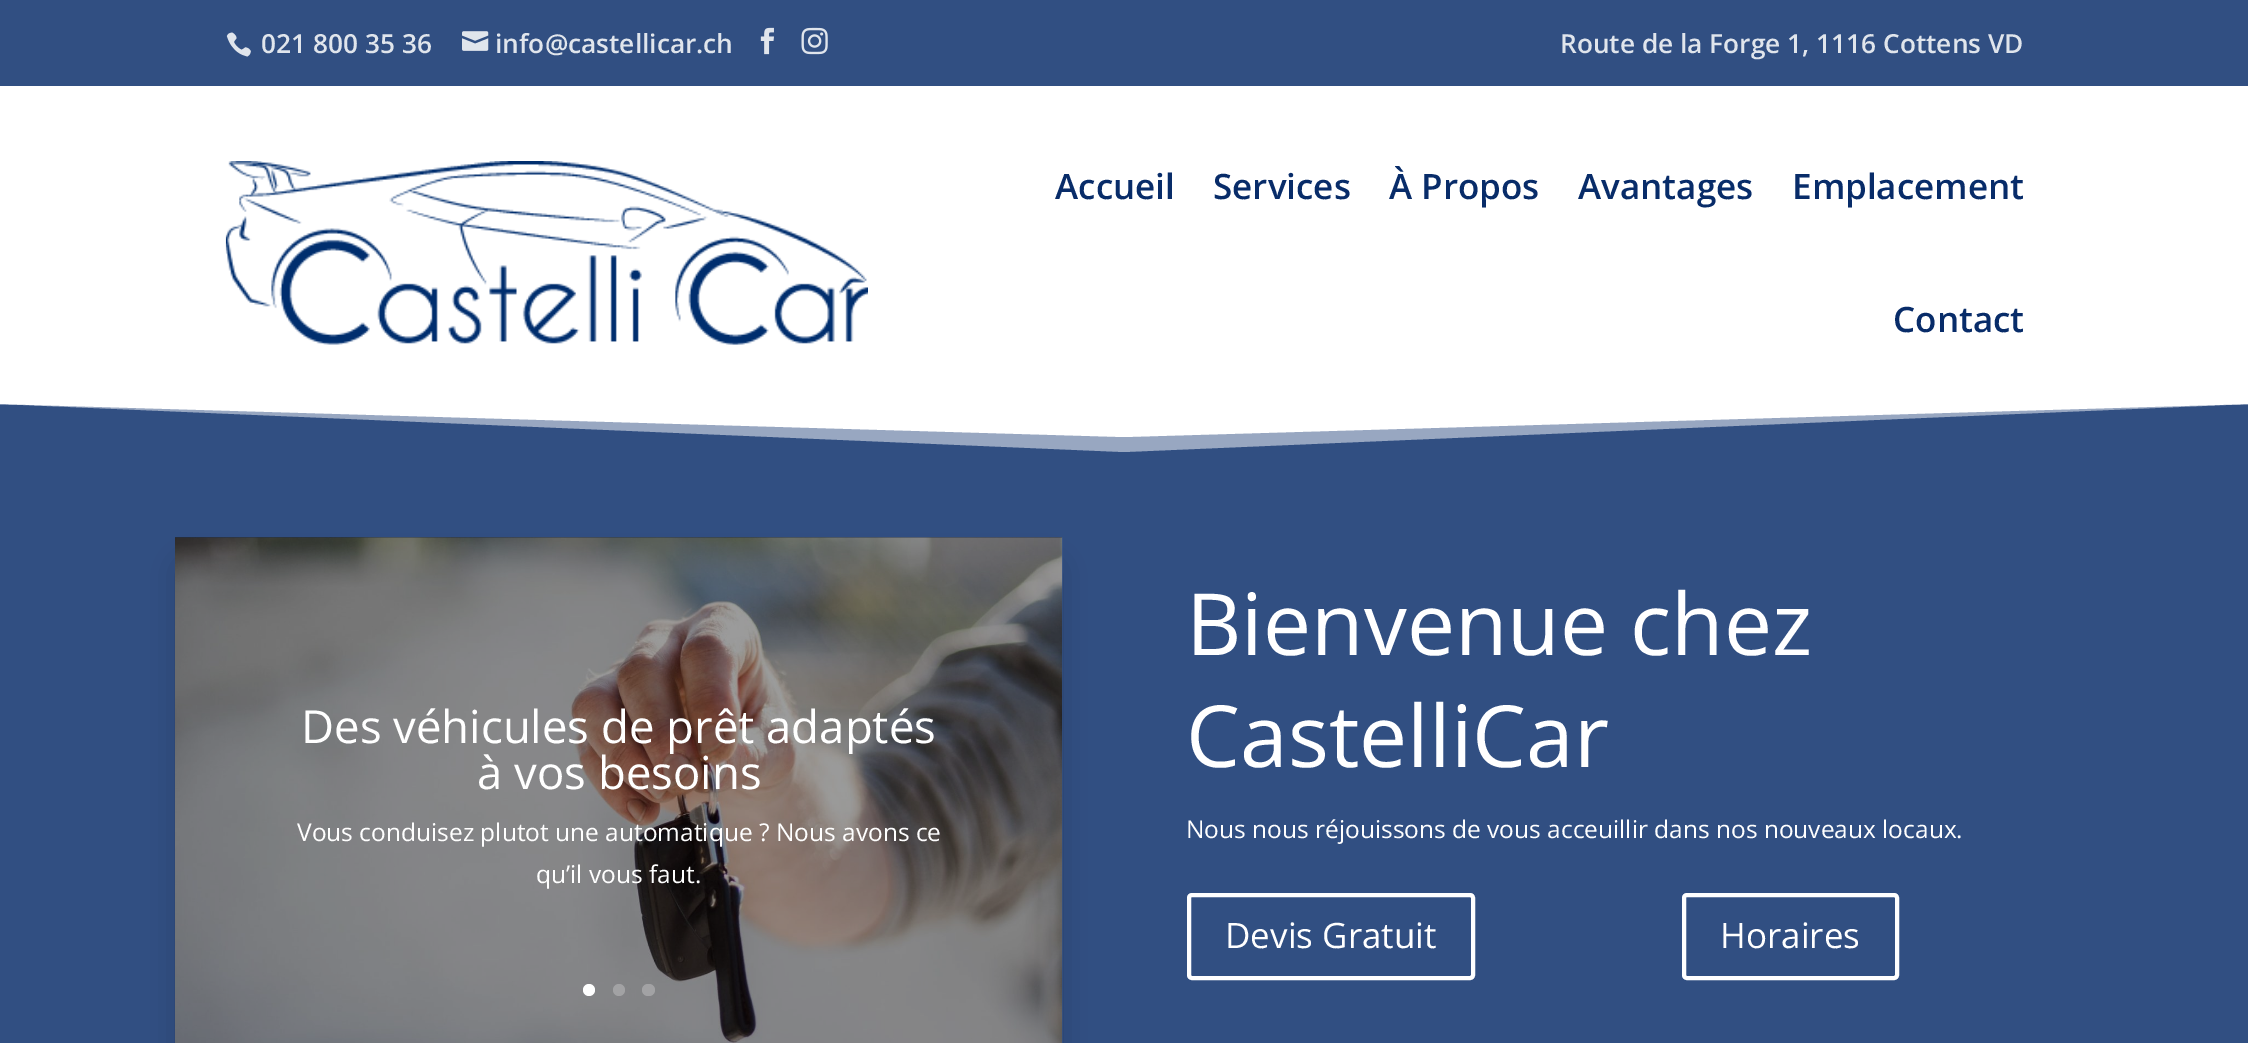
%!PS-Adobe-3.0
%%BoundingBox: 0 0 2248 1043
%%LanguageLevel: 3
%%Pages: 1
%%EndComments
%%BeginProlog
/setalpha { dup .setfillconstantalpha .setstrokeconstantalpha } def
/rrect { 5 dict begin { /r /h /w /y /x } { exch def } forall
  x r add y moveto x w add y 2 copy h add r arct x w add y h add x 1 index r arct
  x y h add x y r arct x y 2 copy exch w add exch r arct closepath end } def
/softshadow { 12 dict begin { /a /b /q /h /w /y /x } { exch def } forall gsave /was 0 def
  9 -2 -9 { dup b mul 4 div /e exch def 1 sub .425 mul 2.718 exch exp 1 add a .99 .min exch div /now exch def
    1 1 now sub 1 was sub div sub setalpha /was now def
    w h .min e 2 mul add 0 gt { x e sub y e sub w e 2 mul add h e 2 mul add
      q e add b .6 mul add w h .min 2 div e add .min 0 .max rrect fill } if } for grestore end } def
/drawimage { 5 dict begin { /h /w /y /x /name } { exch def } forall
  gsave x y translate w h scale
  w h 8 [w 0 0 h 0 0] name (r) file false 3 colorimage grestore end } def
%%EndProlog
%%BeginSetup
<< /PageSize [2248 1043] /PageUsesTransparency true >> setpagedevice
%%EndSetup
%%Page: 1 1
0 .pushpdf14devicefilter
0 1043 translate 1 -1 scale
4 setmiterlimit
0.192 0.31 0.51 setrgbcolor
0 0 2248 1043 rectfill
(images/1.raw) 226 32 25 25 drawimage
(images/2.raw) 462 31 27 20 drawimage
(images/3.raw) 760 27 14 28 drawimage
(images/4.raw) 801 27 27 28 drawimage
1 setgray
0 86 2248 318 rectfill
(images/5.raw) 225 161 643 184 drawimage
0.596 0.655 0.757 setrgbcolor
newpath 1124 452 moveto 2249 404 lineto 0 404 lineto closepath fill
1 setgray
newpath 1124 437 moveto 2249 404 lineto 0 404 lineto closepath fill
0.118 0.188 0.31 setrgbcolor
175 537 887 1 rectfill
0 setgray
186 569 866 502 0 16 0.3 softshadow
(images/6.raw) 175 537 888 506 drawimage
1 setgray
newpath 589 990 6 0 360 arc closepath fill
0.635 0.635 0.643 setrgbcolor
newpath 619 990 6 0 360 arc closepath fill
642 984 13 12 6 rrect fill
1 setgray
4 setlinewidth
1189 895 284 83 3 rrect stroke
1684 895 213 83 3 rrect stroke
/OpenSans-SemiBold [26.25 0 0 -26.25 0 0] selectfont
0.878 0.898 0.925 setrgbcolor
261 53 moveto (021 800 35 36) show
495 53 moveto (info@castellicar.ch) show
1560 53 moveto (Route de la Forge 1, 1116 Cottens VD) show
/OpenSans-SemiBold [35 0 0 -35 0 0] selectfont
0.031 0.173 0.412 setrgbcolor
1055 199 moveto (Accueil) show
1213 199 moveto (Services) show
1389 199 moveto (À Propos) show
1578 199 moveto (Avantages) show
1792 199 moveto (Emplacement) show
1893 332 moveto (Contact) show
/OpenSans-Regular [45.5 0 0 -45.5 0 0] selectfont
1 setgray
301 743 moveto (Des véhicules de prêt adaptés) show
477 789 moveto (à vos besoins) show
/OpenSans-Regular [24.5 0 0 -24.5 0 0] selectfont
297 841 moveto (Vous conduisez plutot une automatique ? Nous avons ce) show
536 883 moveto (qu’il vous faut.) show
/OpenSans-Regular [85.75 0 0 -85.75 0 0] selectfont
1186 655 moveto (Bienvenue chez) show
1186 767 moveto (CastelliCar) show
/OpenSans-Regular [24.5 0 0 -24.5 0 0] selectfont
1186 838 moveto (Nous nous réjouissons de vous acceuillir dans nos nouveaux locaux.) show
/OpenSans-Regular [35 0 0 -35 0 0] selectfont
1225 948 moveto (Devis Gratuit) show
1720 948 moveto (Horaires) show
.poppdf14devicefilter showpage
%%EOF
